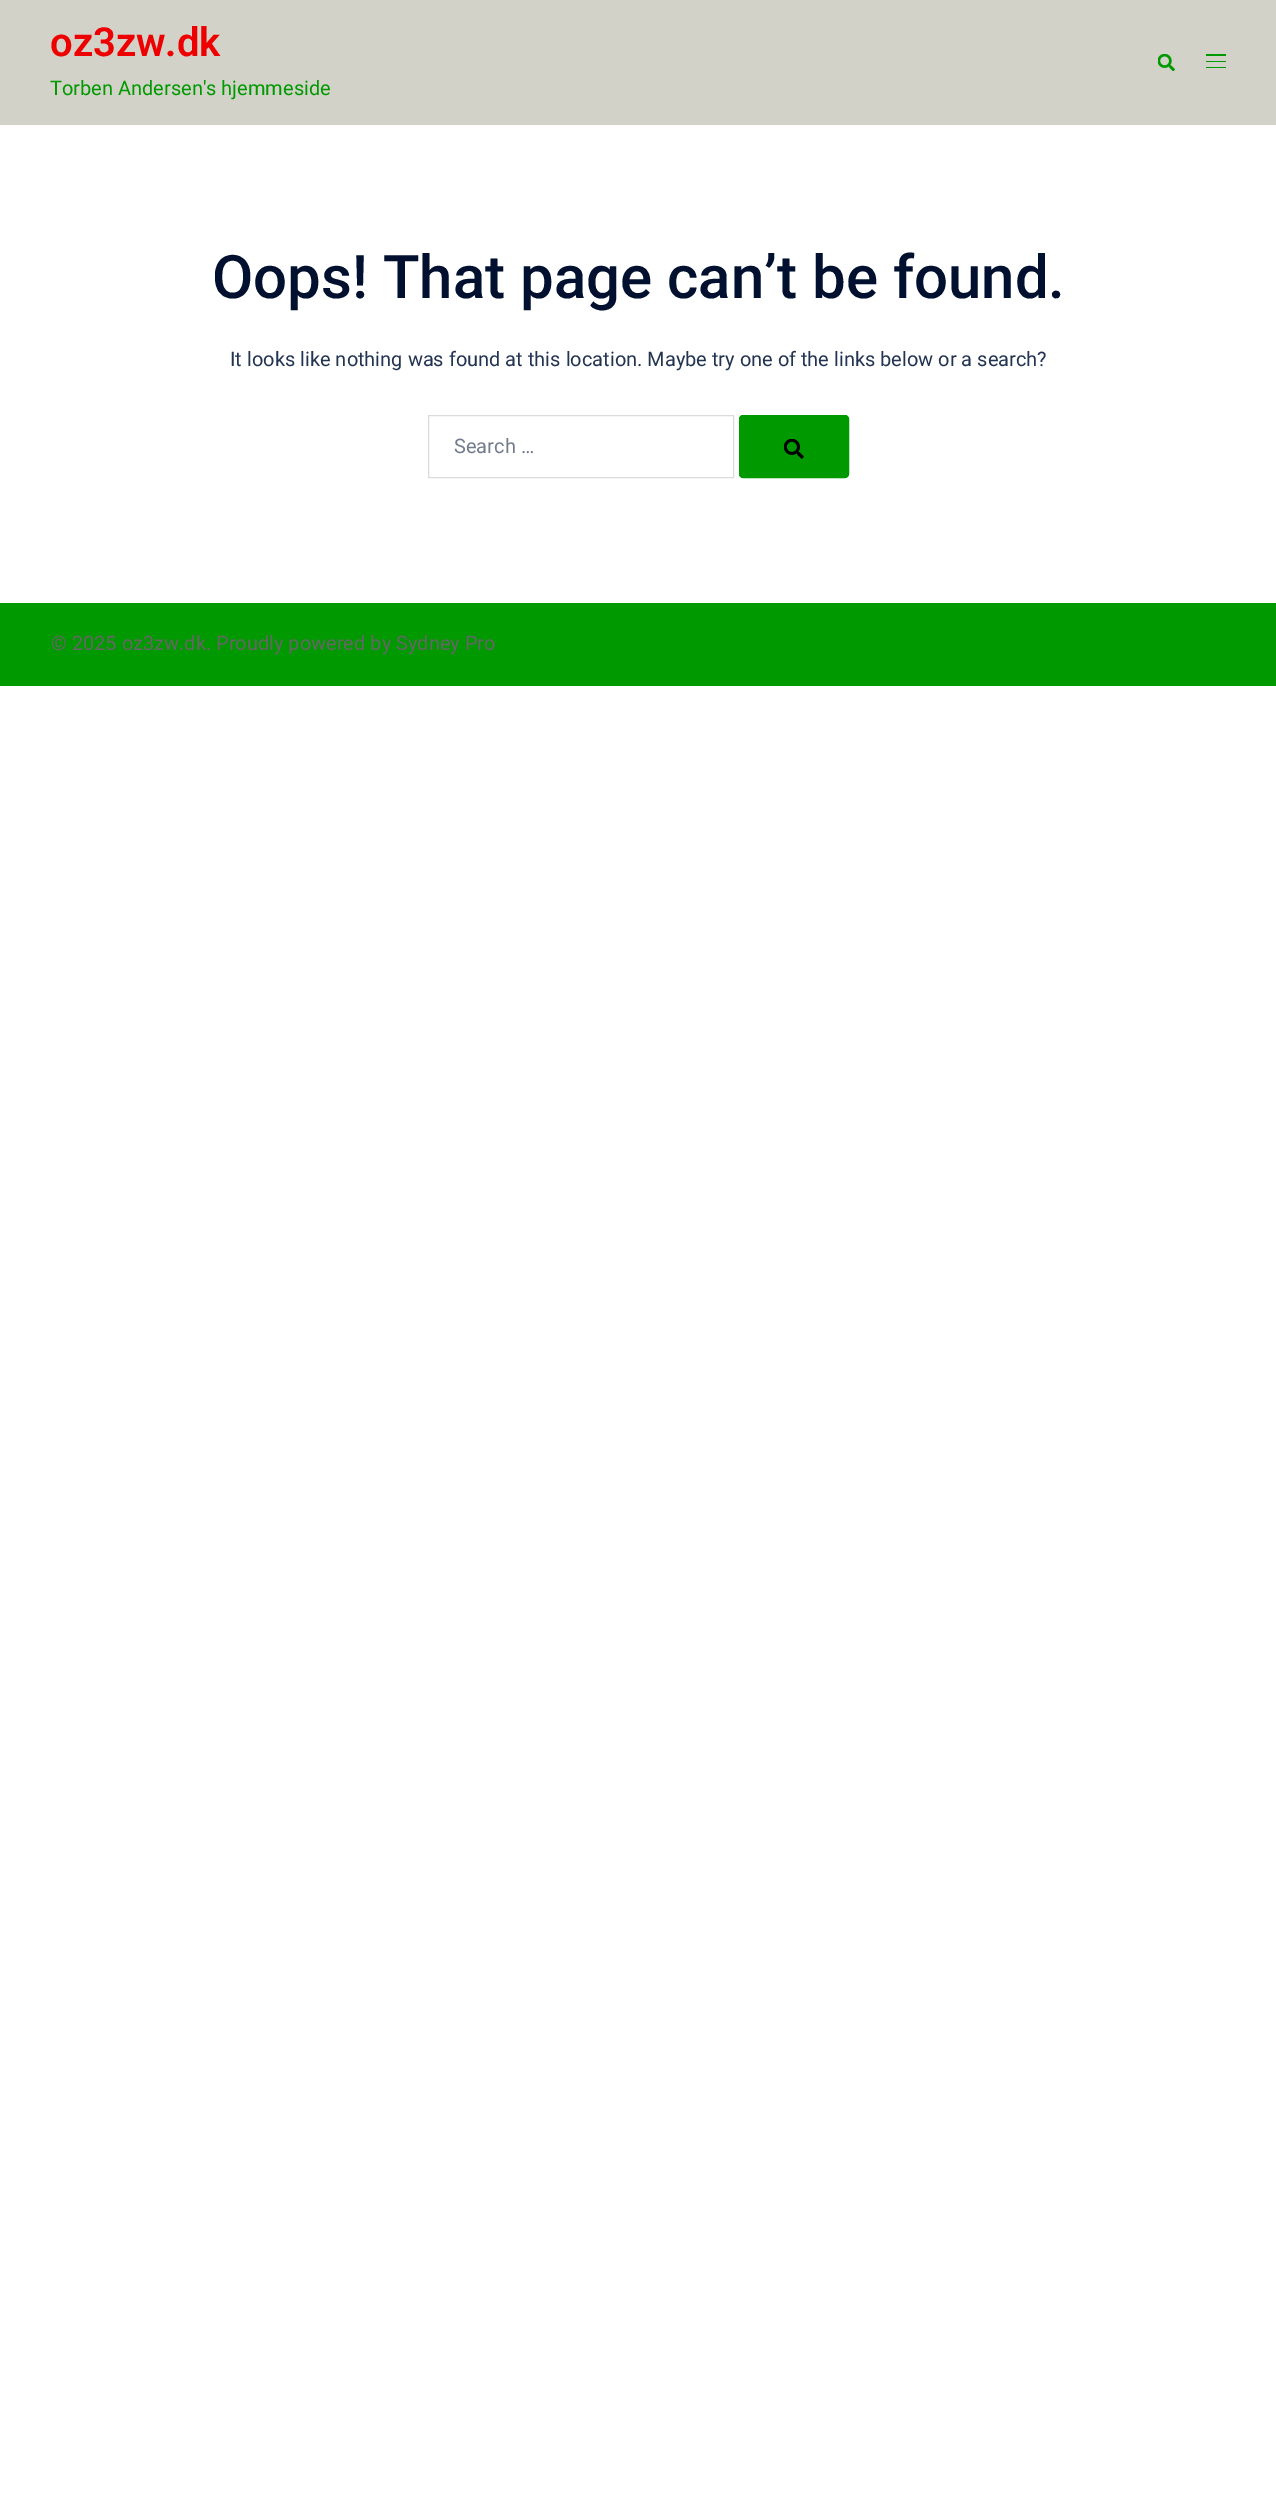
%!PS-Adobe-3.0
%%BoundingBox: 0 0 1276 2507
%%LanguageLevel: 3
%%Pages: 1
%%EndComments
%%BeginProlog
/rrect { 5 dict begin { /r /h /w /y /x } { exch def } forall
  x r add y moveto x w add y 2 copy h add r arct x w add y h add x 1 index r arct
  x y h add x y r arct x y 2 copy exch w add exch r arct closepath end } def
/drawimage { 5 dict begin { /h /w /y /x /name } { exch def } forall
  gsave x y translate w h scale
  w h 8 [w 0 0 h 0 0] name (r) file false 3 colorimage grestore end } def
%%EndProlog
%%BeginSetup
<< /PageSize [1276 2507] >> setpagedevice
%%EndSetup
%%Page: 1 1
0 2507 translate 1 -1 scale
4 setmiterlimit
1 setgray
0 0 1276 2507 rectfill
0.824 0.824 0.784 setrgbcolor
0 0 1276 125 rectfill
(images/1.raw) 1158 54 17 17 drawimage
0 0.6 0 setrgbcolor
1206 54 20 2 rectfill
1206 61 20 1 rectfill
1206 67 20 1 rectfill
0.859 setgray
428.5 415.5 305 62 rectstroke
0 0.6 0 setrgbcolor
739.5 415.5 109 62 3.5 rrect gsave fill grestore
stroke
(images/2.raw) 784 439 20 20 drawimage
0 603 1276 83 rectfill
/Roboto-SemiBold [40 0 0 -40 0 0] selectfont
0.933 0 0 setrgbcolor
50 56 moveto (oz3zw.dk) show
/Roboto-Regular [20 0 0 -20 0 0] selectfont
0 0.6 0 setrgbcolor
50 95 moveto (Torben Andersen's hjemmeside) show
/Roboto-Medium [60 0 0 -60 0 0] selectfont
0 0.063 0.18 setrgbcolor
212 298 moveto (Oops! That page can’t be found.) show
/Roboto-Regular [20 0 0 -20 0 0] selectfont
0.137 0.204 0.322 setrgbcolor
230 366 moveto (It looks like nothing was found at this location. Maybe try one of the links below or a search?) show
0.451 0.486 0.549 setrgbcolor
454 453 moveto (Search …) show
0.4 setgray
51 650 moveto (© 2025 oz3zw.dk. Proudly powered by Sydney Pro) show
showpage
%%EOF
